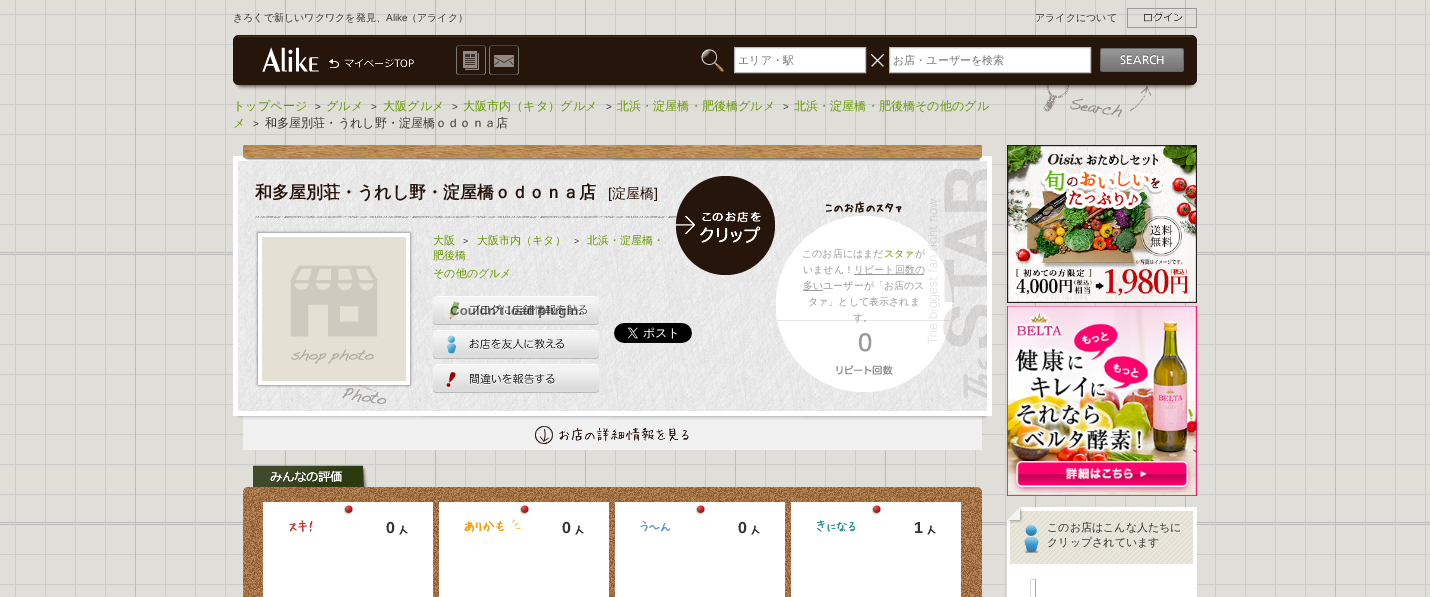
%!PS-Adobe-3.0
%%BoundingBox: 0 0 1430 597
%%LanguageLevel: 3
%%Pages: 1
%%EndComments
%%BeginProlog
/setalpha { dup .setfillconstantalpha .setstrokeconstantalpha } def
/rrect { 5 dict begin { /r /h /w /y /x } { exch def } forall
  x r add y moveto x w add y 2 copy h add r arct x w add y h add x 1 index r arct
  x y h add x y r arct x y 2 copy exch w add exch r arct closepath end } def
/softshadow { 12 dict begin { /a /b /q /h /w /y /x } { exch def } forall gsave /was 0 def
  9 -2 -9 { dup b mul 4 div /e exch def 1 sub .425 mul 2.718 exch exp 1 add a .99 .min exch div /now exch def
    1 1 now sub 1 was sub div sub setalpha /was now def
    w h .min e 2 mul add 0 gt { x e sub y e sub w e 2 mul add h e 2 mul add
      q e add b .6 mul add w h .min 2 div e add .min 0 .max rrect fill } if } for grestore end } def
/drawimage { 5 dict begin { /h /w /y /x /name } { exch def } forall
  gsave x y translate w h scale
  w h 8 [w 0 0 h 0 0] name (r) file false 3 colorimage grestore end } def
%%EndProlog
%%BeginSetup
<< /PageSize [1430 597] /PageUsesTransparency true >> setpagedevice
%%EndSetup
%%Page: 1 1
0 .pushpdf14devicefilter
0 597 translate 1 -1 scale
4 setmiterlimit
1 setgray
0 0 1430 597 rectfill
(images/1.raw) 0 0 1430 597 drawimage
(images/2.raw) 1043 85 108 32 drawimage
(images/3.raw) 1127 8 70 20 drawimage
(images/4.raw) 233 35 964 55 drawimage
(images/5.raw) 262 47 57 25 drawimage
(images/6.raw) 329 59 85 9 drawimage
(images/7.raw) 456 45 30 30 drawimage
(images/8.raw) 489 45 30 30 drawimage
(images/9.raw) 701 49 23 23 drawimage
newpath 734.5 47.5 moveto 865.5 47.5 lineto 865.5 72.5 lineto 734.5 72.5 lineto closepath gsave fill grestore
0.733 setgray
stroke
(images/10.raw) 871 54 13 13 drawimage
1 setgray
newpath 889.5 47.5 moveto 1090.5 47.5 lineto 1090.5 72.5 lineto 889.5 72.5 lineto closepath gsave fill grestore
0.733 setgray
stroke
(images/11.raw) 1100 48 84 24 drawimage
1 setgray
233 156 759 260 rectfill
(images/12.raw) 243 145 739 16 drawimage
(images/13.raw) 238 161 749 250 drawimage
(images/14.raw) 255 216 520 2 drawimage
(images/15.raw) 676 176 99 99 drawimage
(images/16.raw) 257 318 130 86 drawimage
0.4 setgray
258 233 152 152 0 1.5 1 softshadow
1 setgray
258 233 152 152 rectfill
(images/17.raw) 262 237 144 144 drawimage
(images/18.raw) 433 296 166 29 drawimage
(images/19.raw) 444 302 144 18 drawimage
(images/20.raw) 433 330 166 29 drawimage
(images/21.raw) 433 364 166 29 drawimage
(images/22.raw) 614 323 78 20 drawimage
(images/23.raw) 776 201 176 191 drawimage
0.6 setgray
854 274 70 1 rectfill
803 290 20 1 rectfill
(images/24.raw) 927 169 60 229 drawimage
0.941 setgray
243 416 739 34 rectfill
(images/25.raw) 236 416 752 4 drawimage
(images/26.raw) 535 426 154 18 drawimage
(images/27.raw) 253 465 115 22 drawimage
(images/28.raw) 243 487 739 110 drawimage
1 setgray
263 502 170 95 rectfill
(images/29.raw) 343 505 10 10 drawimage
(images/30.raw) 289 520 119 15 drawimage
439 502 170 95 rectfill
(images/29.raw) 519 505 10 10 drawimage
(images/31.raw) 464 519 120 16 drawimage
615 502 170 95 rectfill
(images/29.raw) 695 505 10 10 drawimage
(images/32.raw) 640 520 120 15 drawimage
791 502 170 95 rectfill
(images/29.raw) 871 505 10 10 drawimage
(images/33.raw) 816 520 120 15 drawimage
(images/34.raw) 1007 145 190 158 drawimage
(images/35.raw) 1007 306 190 190 drawimage
(images/36.raw) 1007 507 190 57 drawimage
1007 564 190 33 rectfill
0.867 setgray
1030 579 6 1 rectfill
0.667 setgray
1035 579 1 18 rectfill
0.867 setgray
1030 579 1 18 rectfill
/WenQuanYiZenHei-Medium [10 0 0 -10 0 0] selectfont
0.2 setgray
233 21 moveto (きろくで新しいワクワクを発見、) show
/LiberationSans-Regular [10 0 0 -10 0 0] selectfont
386 21 moveto (Alike) show
/WenQuanYiZenHei-Medium [10 0 0 -10 0 0] selectfont
407 21 moveto (（アライク）) show
1035 21 moveto (アライクについて) show
/WenQuanYiZenHei-Medium [11 0 0 -11 0 0] selectfont
0.459 setgray
738 64 moveto (エリア・駅) show
893 64 moveto (お店・ユーザーを検索) show
/WenQuanYiZenHei-Medium [12.1 0 0 -12.1 0 0] selectfont
0.4 0.6 0 setrgbcolor
233 110 moveto (トップページ) show
/LiberationSans-Regular [10 0 0 -10 0 0] selectfont
0.2 setgray
315 110 moveto (>) show
/WenQuanYiZenHei-Medium [12.1 0 0 -12.1 0 0] selectfont
0.4 0.6 0 setrgbcolor
326 110 moveto (グルメ) show
/LiberationSans-Regular [10 0 0 -10 0 0] selectfont
0.2 setgray
371 110 moveto (>) show
/WenQuanYiZenHei-Medium [12.1 0 0 -12.1 0 0] selectfont
0.4 0.6 0 setrgbcolor
383 110 moveto (大阪グルメ) show
/LiberationSans-Regular [10 0 0 -10 0 0] selectfont
0.2 setgray
452 110 moveto (>) show
/WenQuanYiZenHei-Medium [12.1 0 0 -12.1 0 0] selectfont
0.4 0.6 0 setrgbcolor
463 110 moveto (大阪市内（キタ）グルメ) show
/LiberationSans-Regular [10 0 0 -10 0 0] selectfont
0.2 setgray
606 110 moveto (>) show
/WenQuanYiZenHei-Medium [12.1 0 0 -12.1 0 0] selectfont
0.4 0.6 0 setrgbcolor
617 110 moveto (北浜・淀屋橋・肥後橋グルメ) show
/LiberationSans-Regular [10 0 0 -10 0 0] selectfont
0.2 setgray
783 110 moveto (>) show
/WenQuanYiZenHei-Medium [12.1 0 0 -12.1 0 0] selectfont
0.4 0.6 0 setrgbcolor
794 110 moveto (北浜・淀屋橋・肥後橋その他のグル) show
233 127 moveto (メ) show
/LiberationSans-Regular [10 0 0 -10 0 0] selectfont
0.2 setgray
253 127 moveto (>) show
/WenQuanYiZenHei-Medium [12.1 0 0 -12.1 0 0] selectfont
265 127 moveto (和多屋別荘・うれし野・淀屋橋ｏｄｏｎａ店) show
/WenQuanYiZenHei-Bold [17 0 0 -17 0 0] selectfont
0.149 0.075 0.039 setrgbcolor
255 198 moveto (和多屋別荘・うれし野・淀屋橋ｏｄｏｎａ店) show
/LiberationSans-Regular [14 0 0 -14 0 0] selectfont
608 198 moveto ([) show
/WenQuanYiZenHei-Medium [14 0 0 -14 0 0] selectfont
612 198 moveto (淀屋橋) show
/LiberationSans-Regular [14 0 0 -14 0 0] selectfont
654 198 moveto (]) show
/WenQuanYiZenHei-Medium [11 0 0 -11 0 0] selectfont
0.4 0.6 0 setrgbcolor
433 244 moveto (大阪) show
/LiberationSans-Regular [9 0 0 -9 0 0] selectfont
0.2 setgray
463 244 moveto (>) show
/WenQuanYiZenHei-Medium [11 0 0 -11 0 0] selectfont
0.4 0.6 0 setrgbcolor
477 244 moveto (大阪市内（キタ）) show
/LiberationSans-Regular [9 0 0 -9 0 0] selectfont
0.2 setgray
574 244 moveto (>) show
/WenQuanYiZenHei-Medium [11 0 0 -11 0 0] selectfont
0.4 0.6 0 setrgbcolor
587 244 moveto (北浜・淀屋橋・) show
433 259 moveto (肥後橋) show
433 277 moveto (その他のグルメ) show
/WenQuanYiZenHei-Medium [10 0 0 -10 0 0] selectfont
0.6 setgray
802 257 moveto (このお店にはまだ) show
0.4 0.6 0 setrgbcolor
884 257 moveto (スタァ) show
0.6 setgray
915 257 moveto (が) show
803 273 moveto (いません！) show
854 273 moveto (リピート回数の) show
803 289 moveto (多いユーザーが「お店のス) show
808 305 moveto (タァ」として表示されま) show
853 321 moveto (す。) show
/LiberationSans-Bold [16 0 0 -16 0 0] selectfont
0.2 setgray
386 533 moveto (0) show
562 533 moveto (0) show
738 533 moveto (0) show
914 533 moveto (1) show
/WenQuanYiZenHei-Medium [11 0 0 -11 0 0] selectfont
1047 531 moveto (このお店はこんな人たちに) show
1047 546 moveto (クリップされています) show
.poppdf14devicefilter showpage
%%EOF
